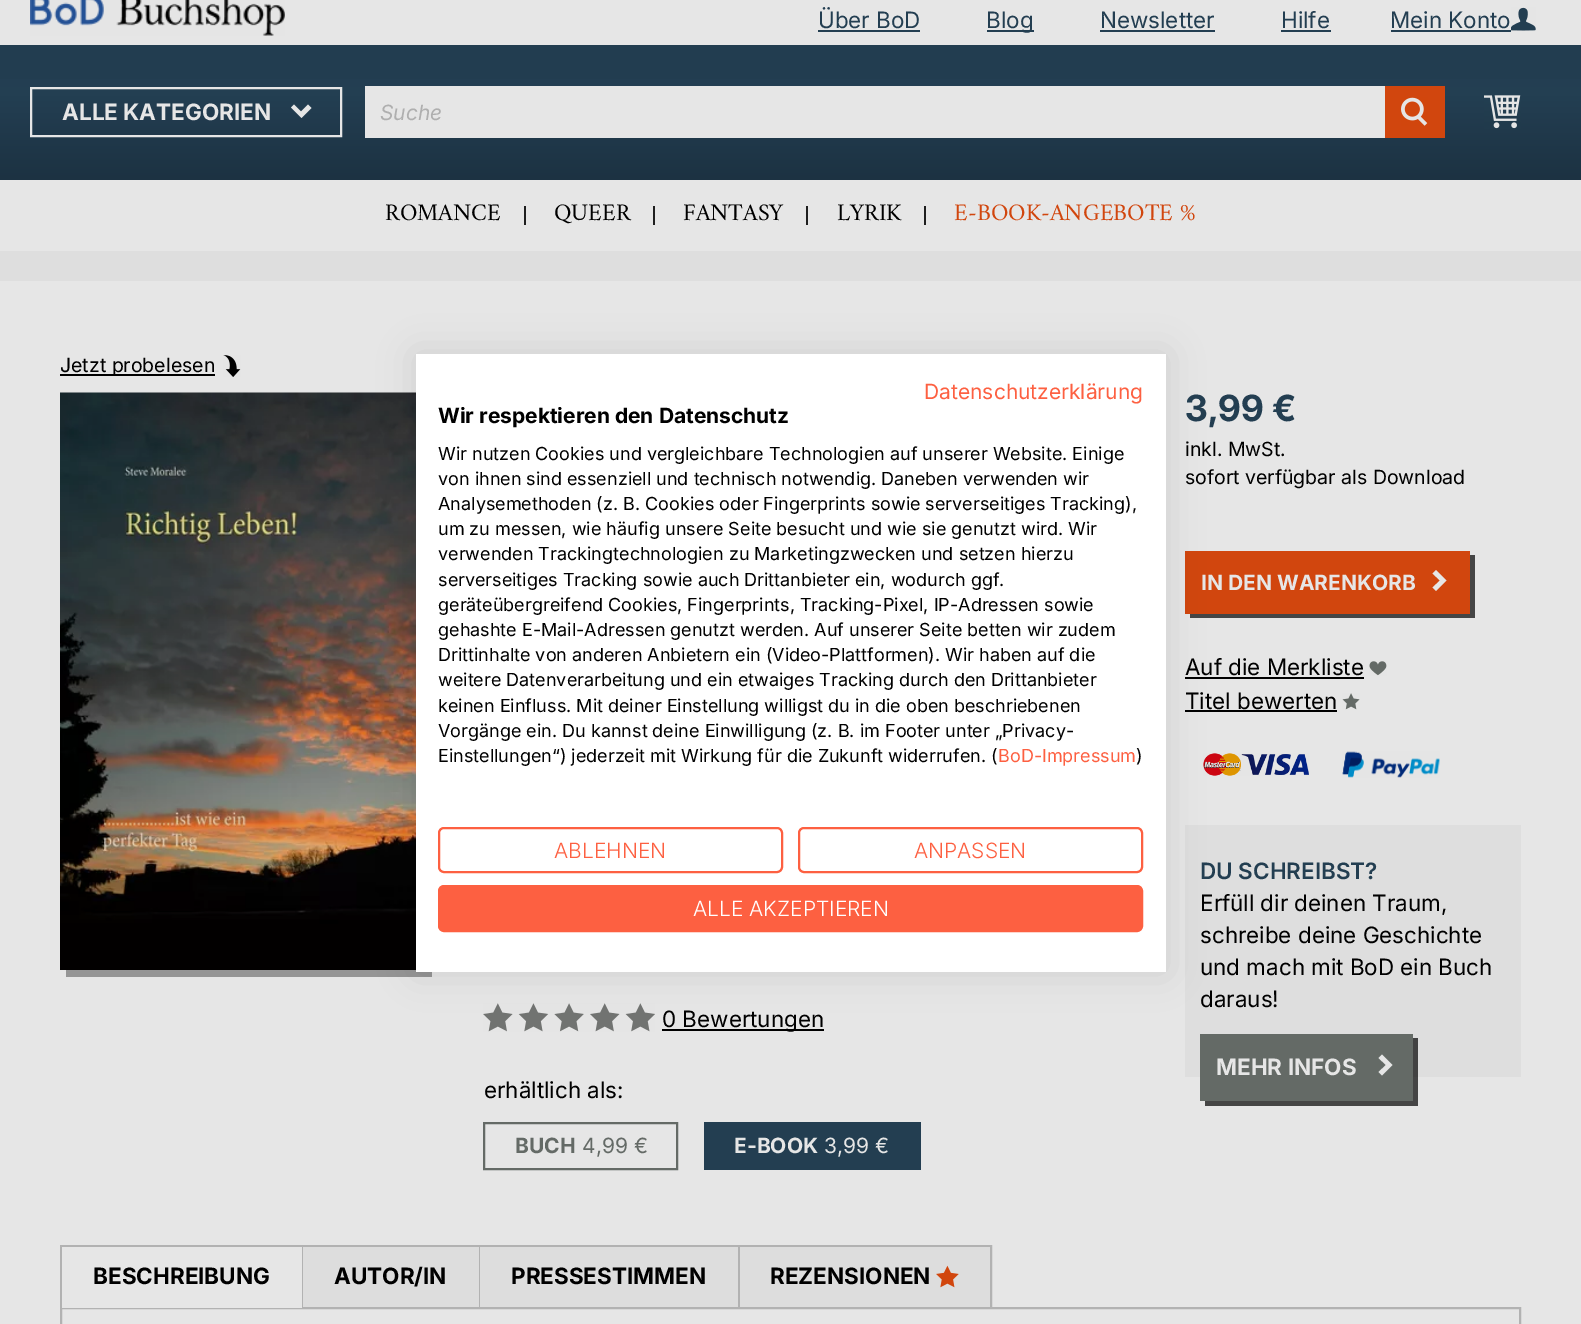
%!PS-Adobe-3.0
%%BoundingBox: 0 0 1581 1324
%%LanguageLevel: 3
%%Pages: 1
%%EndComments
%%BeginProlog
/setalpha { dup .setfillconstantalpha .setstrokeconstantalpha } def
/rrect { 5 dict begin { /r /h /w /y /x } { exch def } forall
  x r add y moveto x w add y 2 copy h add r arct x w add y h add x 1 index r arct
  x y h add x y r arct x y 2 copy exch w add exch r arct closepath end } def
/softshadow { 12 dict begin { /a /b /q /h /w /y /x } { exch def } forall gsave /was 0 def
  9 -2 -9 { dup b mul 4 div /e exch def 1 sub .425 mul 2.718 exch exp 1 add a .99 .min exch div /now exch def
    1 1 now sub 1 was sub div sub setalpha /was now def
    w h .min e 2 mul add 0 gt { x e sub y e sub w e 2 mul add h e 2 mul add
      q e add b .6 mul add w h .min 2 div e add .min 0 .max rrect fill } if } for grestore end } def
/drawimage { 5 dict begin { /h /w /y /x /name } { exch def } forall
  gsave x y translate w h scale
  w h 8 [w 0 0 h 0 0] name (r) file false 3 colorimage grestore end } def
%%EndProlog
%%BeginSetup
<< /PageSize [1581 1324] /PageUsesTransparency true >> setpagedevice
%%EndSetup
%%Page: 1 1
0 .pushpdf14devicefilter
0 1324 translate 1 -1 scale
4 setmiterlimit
0.871 setgray
0 0 1581 1324 rectfill
0.902 setgray
0 0 1581 251 rectfill
(images/1.raw) 30 0 255 36 drawimage
0.137 0.243 0.318 setrgbcolor
818 30 102 2 rectfill
987 30 47 2 rectfill
1100 30 115 2 rectfill
1281 30 50 2 rectfill
1391 30 120 2 rectfill
(images/2.raw) 1511 7 25 24 drawimage
gsave newpath 0 45 moveto 1581 45 lineto 1581 180 lineto 0 180 lineto closepath clip newpath
<< /ShadingType 2 /ColorSpace /DeviceRGB /Coords [791 45 791 180] /Extend [true true] /Function << /FunctionType 3 /Domain [0 1] /Functions [<< /FunctionType 2 /Domain [0 1] /C0 [0.133 0.239 0.314] /C1 [0.137 0.247 0.322] /N 1 >> << /FunctionType 2 /Domain [0 1] /C0 [0.137 0.247 0.322] /C1 [0.11 0.196 0.259] /N 1 >>] /Bounds [0.37] /Encode [0 1 0 1] >> >> shfill grestore
0.902 setgray
2 setlinewidth
31 88 310 48 rectstroke
newpath 301 111.5 moveto 294 104.5 lineto 291 107.5 lineto 301.5 118 lineto 311.5 108 lineto 308 104.5 lineto closepath fill
365 86 1020 52 rectfill
0.82 0.275 0.055 setrgbcolor
1385 86 60 52 rectfill
(images/3.raw) 1401 97 27 29 drawimage
(images/4.raw) 1484 95 37 34 drawimage
0.122 setgray
524 206 2 19 rectfill
653 206 2 19 rectfill
806 206 2 19 rectfill
924 206 2 19 rectfill
0.902 setgray
0 281 1581 1043 rectfill
0 setgray
60 374 155 2 rectfill
(images/5.raw) 223 355 18 22 drawimage
0.584 setgray
newpath 66 970 moveto 66 977 lineto 432 977 lineto 432 399 lineto 426 399 lineto 426 970 lineto closepath fill
(images/6.raw) 60 392 356 578 drawimage
(images/7.raw) 483 1003 172 29 drawimage
0 setgray
662 1029 162 2 rectfill
0.392 0.416 0.4 setrgbcolor
484 1123 193 46 rectstroke
0.137 0.243 0.318 setrgbcolor
704 1122 217 48 rectfill
0.271 setgray
newpath 1190 614 moveto 1190 618 lineto 1475 618 lineto 1475 555 lineto 1470 555 lineto 1470 614 lineto closepath fill
0.82 0.275 0.055 setrgbcolor
1185 551 285 63 rectfill
0.902 setgray
newpath 1440 580.5 moveto 1432.5 587.5 lineto 1436 591 lineto 1446.5 580.5 lineto 1436 570 lineto 1432.5 573.5 lineto closepath fill
0 setgray
1185 677 179 2 rectfill
(images/8.raw) 1369 661 18 15 drawimage
1185 710 152 2 rectfill
(images/9.raw) 1342 693 18 17 drawimage
(images/10.raw) 1203 753 106 23 drawimage
(images/11.raw) 1342 751 98 27 drawimage
0.871 setgray
1185 825 336 252 rectfill
0.7 setalpha
0 setgray
newpath 1205 1101 moveto 1205 1106 lineto 1418 1106 lineto 1418 1038 lineto 1413 1038 lineto 1413 1101 lineto closepath fill
1 setalpha
0.392 0.416 0.4 setrgbcolor
1200 1034 213 67 rectfill
0.902 setgray
newpath 1386 1065 moveto 1378.5 1072 lineto 1382 1075.5 lineto 1392.5 1065 lineto 1382 1054.5 lineto 1378.5 1058 lineto closepath fill
0.698 setgray
60 1245 678 2 rectfill
60 1245 2 65 rectfill
61 1308 1459 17 rectstroke
0.902 setgray
62 1307 240 1 rectfill
0.698 setgray
302 1245 2 63 rectfill
0.867 setgray
303 1247 176 60 rectfill
0.698 setgray
479 1245 2 63 rectfill
0.867 setgray
480 1247 258 60 rectfill
0.698 setgray
739 1246 252 61 rectstroke
0.867 setgray
740 1247 250 60 rectfill
(images/12.raw) 936 1265 23 23 drawimage
0 setgray
416 354 750 618 0 18 0.1 softshadow
1 setgray
416 354 750 618 rectfill
0.992 0.376 0.255 setrgbcolor
439 828 343 44 5 rrect stroke
799 828 343 44 5 rrect stroke
439 886 703 45 5 rrect gsave fill grestore
stroke
/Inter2-Regular [22.5 0 0 -22.5 0 0] selectfont
0.137 0.243 0.318 setrgbcolor
818 28 moveto (Über BoD) show
986 28 moveto (Blog) show
1100 28 moveto (Newsletter) show
1281 28 moveto (Hilfe) show
1390 28 moveto (Mein Konto) show
/Inter2-Bold [22.5 0 0 -22.5 0 0] selectfont
0.902 setgray
62 120 moveto (ALLE KATEGORIEN) show
/Inter-Italic [21 0 0 -21 0 0] selectfont
0.686 setgray
380 120 moveto (Suche) show
/Amiri-Regular [24 0 0 -24 0 0] selectfont
0 setgray
385 220 moveto (ROMANCE) show
554 220 moveto (QUEER) show
683 220 moveto (FANTASY) show
837 220 moveto (LYRIK) show
0.82 0.275 0.055 setrgbcolor
954 220 moveto (E-BOOK-ANGEBOTE %) show
/Inter-Regular [19.5 0 0 -19.5 0 0] selectfont
0 setgray
60 372 moveto (Jetzt probelesen) show
/Inter2-Regular [22.5 0 0 -22.5 0 0] selectfont
662 1027 moveto (0 Bewertungen) show
484 1098 moveto (erhältlich als:) show
/Inter2-Bold [21 0 0 -21 0 0] selectfont
0.392 0.416 0.4 setrgbcolor
515 1153 moveto (BUCH) show
/Inter-Regular [21 0 0 -21 0 0] selectfont
582 1153 moveto (4,99 €) show
/Inter2-Bold [21 0 0 -21 0 0] selectfont
0.902 setgray
734 1153 moveto (E-BOOK) show
/Inter-Regular [21 0 0 -21 0 0] selectfont
824 1153 moveto (3,99 €) show
/Inter-Bold [36 0 0 -36 0 0] selectfont
0.137 0.243 0.318 setrgbcolor
1185 421 moveto (3,99 €) show
/Inter-Regular [19.5 0 0 -19.5 0 0] selectfont
0 setgray
1185 456 moveto (inkl. MwSt.) show
1185 484 moveto (sofort verfügbar als Download) show
/Inter2-Bold [21 0 0 -21 0 0] selectfont
0.902 setgray
1201 590 moveto (IN DEN WARENKORB) show
/Inter2-Regular [22.5 0 0 -22.5 0 0] selectfont
0 setgray
1185 675 moveto (Auf die Merkliste) show
1185 709 moveto (Titel bewerten) show
/Inter-SemiBold [22.5 0 0 -22.5 0 0] selectfont
0.137 0.243 0.318 setrgbcolor
1200 879 moveto (DU SCHREIBST?) show
/Inter2-Regular [22.5 0 0 -22.5 0 0] selectfont
0 setgray
1200 911 moveto (Erfüll dir deinen Traum,) show
1200 943 moveto (schreibe deine Geschichte) show
1200 975 moveto (und mach mit BoD ein Buch) show
1200 1007 moveto (daraus!) show
/Inter2-Bold [22.5 0 0 -22.5 0 0] selectfont
0.902 setgray
1216 1075 moveto (MEHR INFOS) show
0 setgray
93 1284 moveto (BESCHREIBUNG) show
334 1284 moveto (AUTOR/IN) show
511 1284 moveto (PRESSESTIMMEN) show
770 1284 moveto (REZENSIONEN) show
/Inter-Regular [21 0 0 -21 0 0] selectfont
0.992 0.376 0.255 setrgbcolor
924 399 moveto (Datenschutzerklärung) show
/Inter2-Bold [21 0 0 -21 0 0] selectfont
0 setgray
438 423 moveto (Wir respektieren den Datenschutz) show
/Inter-Regular [18 0 0 -18 0 0] selectfont
438 460 moveto (Wir nutzen Cookies und vergleichbare Technologien auf unserer Website. Einige) show
438 485 moveto (von ihnen sind essenziell und technisch notwendig. Daneben verwenden wir) show
438 510 moveto (Analysemethoden \(z. B. Cookies oder Fingerprints sowie serverseitiges Tracking\),) show
438 535 moveto (um zu messen, wie häufig unsere Seite besucht und wie sie genutzt wird. Wir) show
438 560 moveto (verwenden Trackingtechnologien zu Marketingzwecken und setzen hierzu) show
438 586 moveto (serverseitiges Tracking sowie auch Drittanbieter ein, wodurch ggf.) show
438 611 moveto (geräteübergreifend Cookies, Fingerprints, Tracking-Pixel, IP-Adressen sowie) show
438 636 moveto (gehashte E-Mail-Adressen genutzt werden. Auf unserer Seite betten wir zudem) show
438 661 moveto (Drittinhalte von anderen Anbietern ein \(Video-Plattformen\). Wir haben auf die) show
438 686 moveto (weitere Datenverarbeitung und ein etwaiges Tracking durch den Drittanbieter) show
438 712 moveto (keinen Einfluss. Mit deiner Einstellung willigst du in die oben beschriebenen) show
438 737 moveto (Vorgänge ein. Du kannst deine Einwilligung \(z. B. im Footer unter „Privacy-) show
438 762 moveto (Einstellungen“\) jederzeit mit Wirkung für die Zukunft widerrufen. \() show
0.992 0.376 0.255 setrgbcolor
998 762 moveto (BoD-Impressum) show
0 setgray
1136 762 moveto (\)) show
/Inter-Light [21 0 0 -21 0 0] selectfont
0.992 0.376 0.255 setrgbcolor
554 858 moveto (ABLEHNEN) show
914 858 moveto (ANPASSEN) show
1 setgray
693 916 moveto (ALLE AKZEPTIEREN) show
.poppdf14devicefilter showpage
%%EOF
